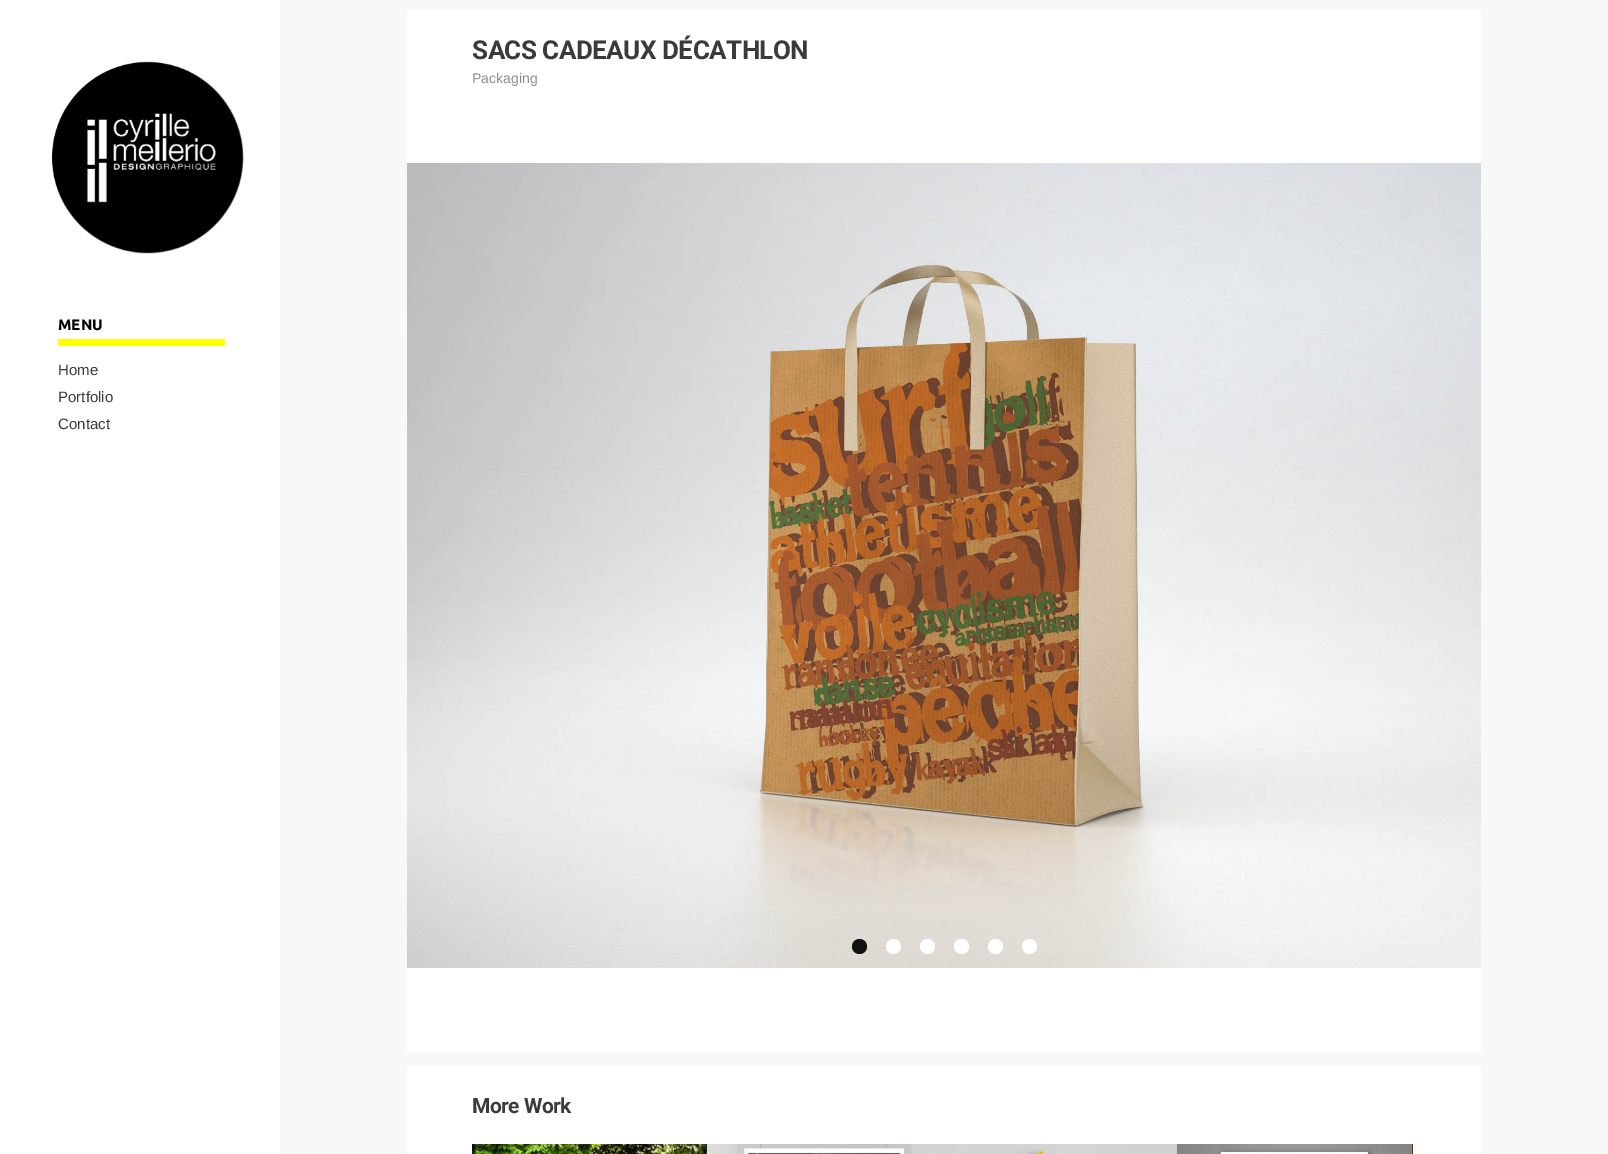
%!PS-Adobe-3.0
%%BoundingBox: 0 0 1608 1154
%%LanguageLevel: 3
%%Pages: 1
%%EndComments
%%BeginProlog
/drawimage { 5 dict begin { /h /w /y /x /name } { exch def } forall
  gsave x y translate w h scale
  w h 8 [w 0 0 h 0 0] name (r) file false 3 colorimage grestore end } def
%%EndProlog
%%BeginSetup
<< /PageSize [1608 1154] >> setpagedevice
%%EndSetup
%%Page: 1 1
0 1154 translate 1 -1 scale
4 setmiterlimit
0.973 setgray
0 0 1608 1154 rectfill
1 setgray
0 0 280 1154 rectfill
(images/1.raw) 52 61 192 193 drawimage
1 1 0 setrgbcolor
58 339 167 7 rectfill
1 setgray
407 10 1074 153 rectfill
(images/2.raw) 407 163 1074 805 drawimage
0.067 setgray
newpath 859.5 946.5 7.5 0 360 arc closepath fill
1 setgray
newpath 893.5 946.5 7.5 0 360 arc closepath fill
newpath 927.5 946.5 7.5 0 360 arc closepath fill
newpath 961.5 946.5 7.5 0 360 arc closepath fill
newpath 995.5 946.5 7.5 0 360 arc closepath fill
newpath 1029.5 946.5 7.5 0 360 arc closepath fill
407 968 1074 85 rectfill
407 1066 1074 88 rectfill
(images/3.raw) 472 1144 235 10 drawimage
(images/4.raw) 707 1144 235 10 drawimage
(images/5.raw) 942 1144 235 10 drawimage
(images/6.raw) 1177 1144 235 10 drawimage
(images/7.raw) 1412 1144 1 10 drawimage
/Ubuntu-Bold [15 0 0 -15 0 0] selectfont
0 setgray
58 330 moveto (MENU) show
/LiberationSans-Regular [15 0 0 -15 0 0] selectfont
0.227 setgray
58 375 moveto (Home) show
58 402 moveto (Portfolio) show
58 429 moveto (Contact) show
/Roboto-Bold [26 0 0 -26 0 0] selectfont
472 59 moveto -0.5 0 (SACS CADEAUX DÉCATHLON) ashow
/LiberationSans-Regular [14 0 0 -14 0 0] selectfont
0.553 setgray
472 83 moveto (Packaging) show
/Roboto-Bold [21 0 0 -21 0 0] selectfont
0.227 setgray
472 1113 moveto -0.5 0 (More Work) ashow
showpage
%%EOF
